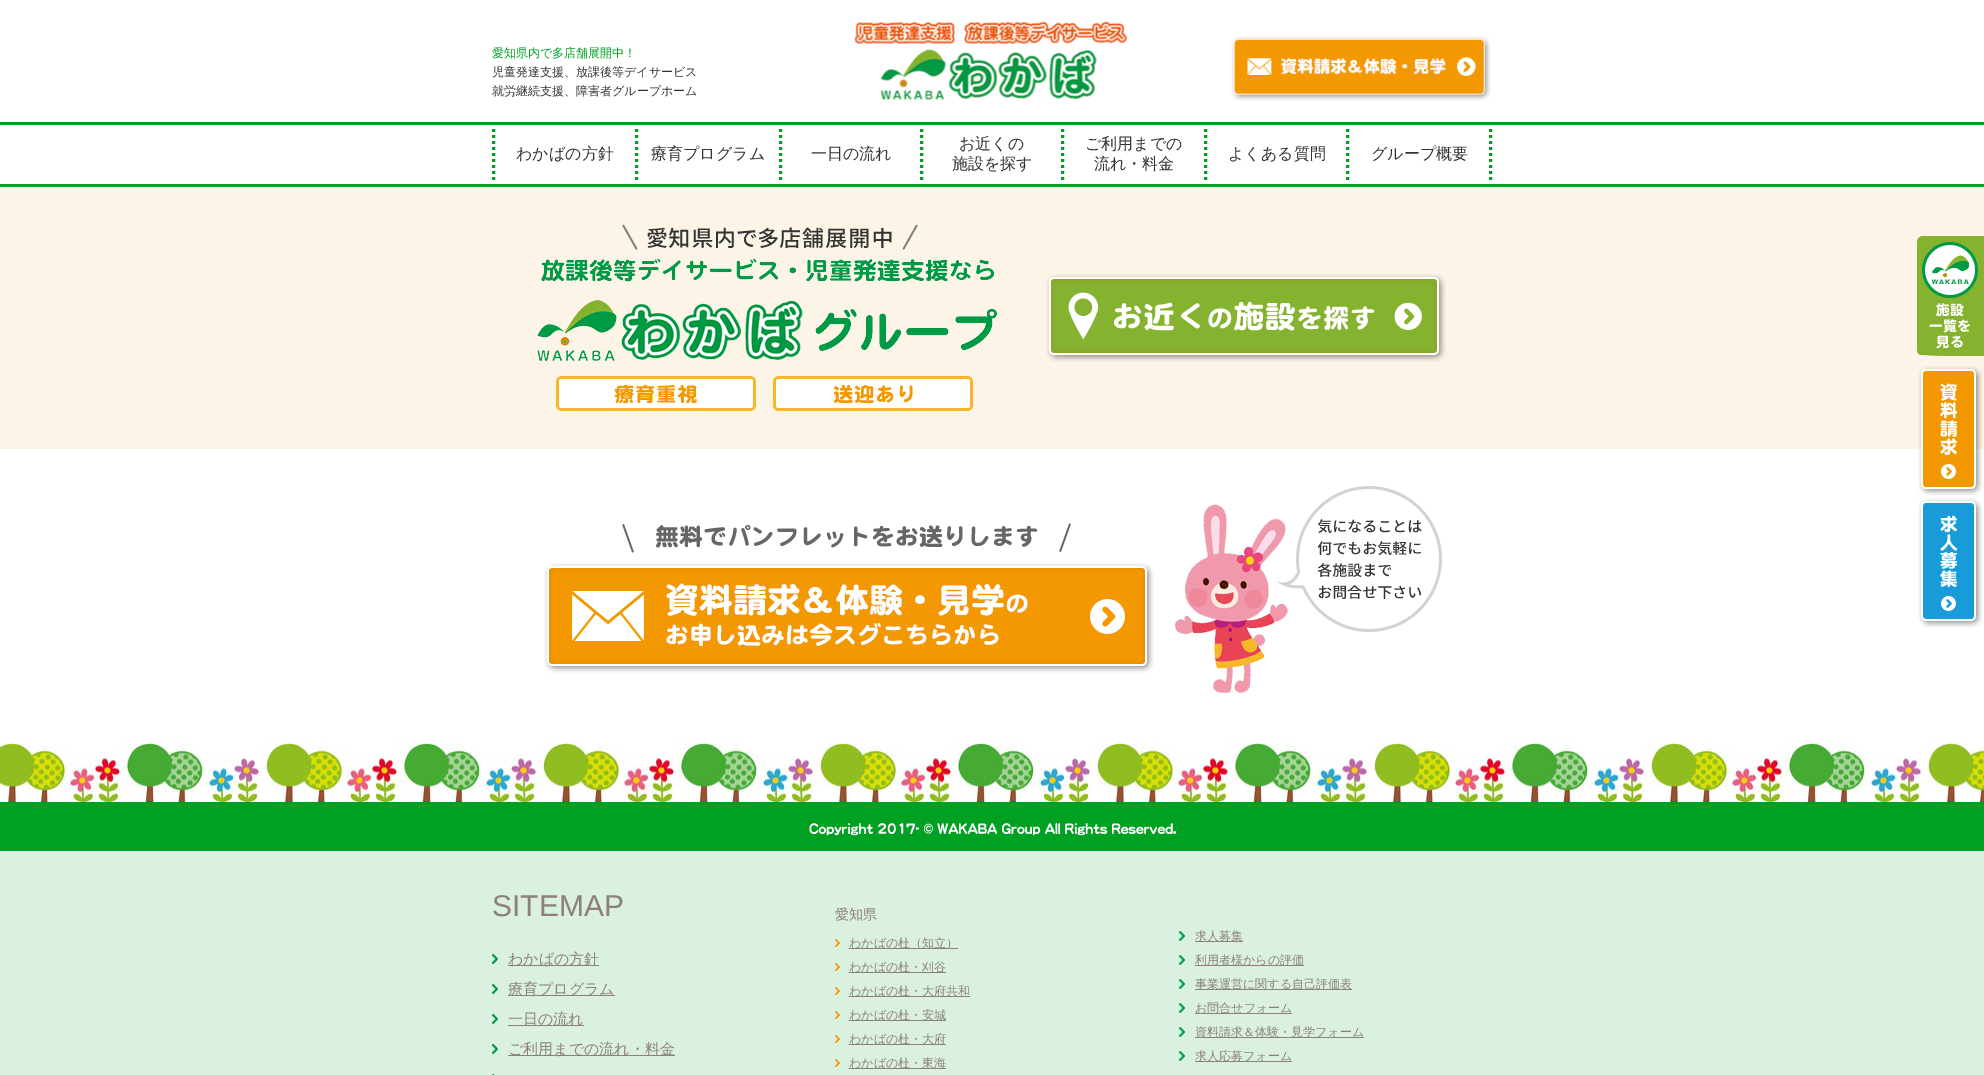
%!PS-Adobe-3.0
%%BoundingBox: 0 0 1984 1075
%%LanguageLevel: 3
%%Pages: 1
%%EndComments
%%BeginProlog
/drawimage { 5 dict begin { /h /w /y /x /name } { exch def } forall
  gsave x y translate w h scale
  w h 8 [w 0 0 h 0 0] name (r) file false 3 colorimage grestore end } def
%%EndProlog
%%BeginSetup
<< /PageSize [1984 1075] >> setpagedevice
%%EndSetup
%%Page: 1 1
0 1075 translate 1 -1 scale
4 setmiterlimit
1 setgray
0 0 1984 1075 rectfill
(images/1.raw) 854 21 274 79 drawimage
(images/2.raw) 1231 36 260 65 drawimage
0 0.631 0.137 setrgbcolor
0 122 1984 3 rectfill
0 184 1984 3 rectfill
3 setlinewidth
[3 3] 0 setdash
newpath 1490.5 129 moveto 1490.5 180 lineto stroke
newpath 493.5 129 moveto 493.5 180 lineto stroke
newpath 636.5 129 moveto 636.5 180 lineto stroke
newpath 780.5 129 moveto 780.5 180 lineto stroke
newpath 921.5 129 moveto 921.5 180 lineto stroke
newpath 1062.5 129 moveto 1062.5 180 lineto stroke
newpath 1205.5 129 moveto 1205.5 180 lineto stroke
newpath 1347.5 129 moveto 1347.5 180 lineto stroke
0.988 0.957 0.906 setrgbcolor
0 187 1984 262 rectfill
(images/3.raw) 537 224 460 187 drawimage
(images/4.raw) 1046 274 400 88 drawimage
(images/5.raw) 544 486 898 207 drawimage
(images/6.raw) 1917 236 67 120 drawimage
(images/7.raw) 1918 366 64 130 drawimage
(images/8.raw) 1918 498 64 130 drawimage
0.855 0.941 0.882 setrgbcolor
0 851 1984 224 rectfill
(images/9.raw) 0 742 1984 60 drawimage
0 0.631 0.137 setrgbcolor
0 802 1984 49 rectfill
(images/10.raw) 809 823 367 13 drawimage
(images/11.raw) 492 954 6 10 drawimage
0.553 0.498 0.475 setrgbcolor
508 965 91 1 rectfill
(images/11.raw) 492 984 6 10 drawimage
508 995 107 1 rectfill
(images/11.raw) 492 1014 6 10 drawimage
508 1025 76 1 rectfill
(images/11.raw) 492 1044 6 10 drawimage
508 1055 167 1 rectfill
(images/12.raw) 492 1074 3 1 drawimage
(images/13.raw) 835 939 5 8 drawimage
849 948 109 1 rectfill
(images/13.raw) 835 963 5 8 drawimage
849 972 97 1 rectfill
(images/13.raw) 835 987 5 8 drawimage
849 996 121 1 rectfill
(images/13.raw) 835 1011 5 8 drawimage
849 1020 97 1 rectfill
(images/13.raw) 835 1035 5 8 drawimage
849 1044 97 1 rectfill
(images/13.raw) 835 1059 5 8 drawimage
849 1068 97 1 rectfill
(images/11.raw) 1179 931 6 10 drawimage
1195 941 48 1 rectfill
(images/11.raw) 1179 955 6 10 drawimage
1195 965 109 1 rectfill
(images/11.raw) 1179 979 6 10 drawimage
1195 989 157 1 rectfill
(images/11.raw) 1179 1003 6 10 drawimage
1195 1013 97 1 rectfill
(images/11.raw) 1179 1027 6 10 drawimage
1195 1037 169 1 rectfill
(images/11.raw) 1179 1051 6 10 drawimage
1195 1061 97 1 rectfill
/WenQuanYiZenHei-Medium [12 0 0 -12 0 0] selectfont
0 0.631 0.137 setrgbcolor
492 57 moveto (愛知県内で多店舗展開中！) show
0.2 setgray
492 76 moveto (児童発達支援、放課後等デイサービス) show
492 95 moveto (就労継続支援、障害者グループホーム) show
/WenQuanYiZenHei-Medium [16 0 0 -16 0 0] selectfont
516 159 moveto (わかばの方針) show
651 159 moveto (療育プログラム) show
811 159 moveto (一日の流れ) show
959 149 moveto (お近くの) show
952 169 moveto (施設を探す) show
1085 149 moveto (ご利用までの) show
1094 169 moveto (流れ・料金) show
1228 159 moveto (よくある質問) show
1371 159 moveto (グループ概要) show
/LiberationSans-Regular [30 0 0 -30 0 0] selectfont
0.553 0.498 0.475 setrgbcolor
492 916 moveto (SITEMAP) show
/WenQuanYiZenHei-Medium [15 0 0 -15 0 0] selectfont
508 964 moveto (わかばの方針) show
508 994 moveto (療育プログラム) show
508 1024 moveto (一日の流れ) show
508 1054 moveto (ご利用までの流れ・料金) show
/WenQuanYiZenHei-Medium [14 0 0 -14 0 0] selectfont
835 919 moveto (愛知県) show
/WenQuanYiZenHei-Medium [12 0 0 -12 0 0] selectfont
849 947 moveto (わかばの杜（知立）) show
849 971 moveto (わかばの杜・刈谷) show
849 995 moveto (わかばの杜・大府共和) show
849 1019 moveto (わかばの杜・安城) show
849 1043 moveto (わかばの杜・大府) show
849 1067 moveto (わかばの杜・東海) show
1195 940 moveto (求人募集) show
1195 964 moveto (利用者様からの評価) show
1195 988 moveto (事業運営に関する自己評価表) show
1195 1012 moveto (お問合せフォーム) show
1195 1036 moveto (資料請求＆体験・見学フォーム) show
1195 1060 moveto (求人応募フォーム) show
showpage
%%EOF
